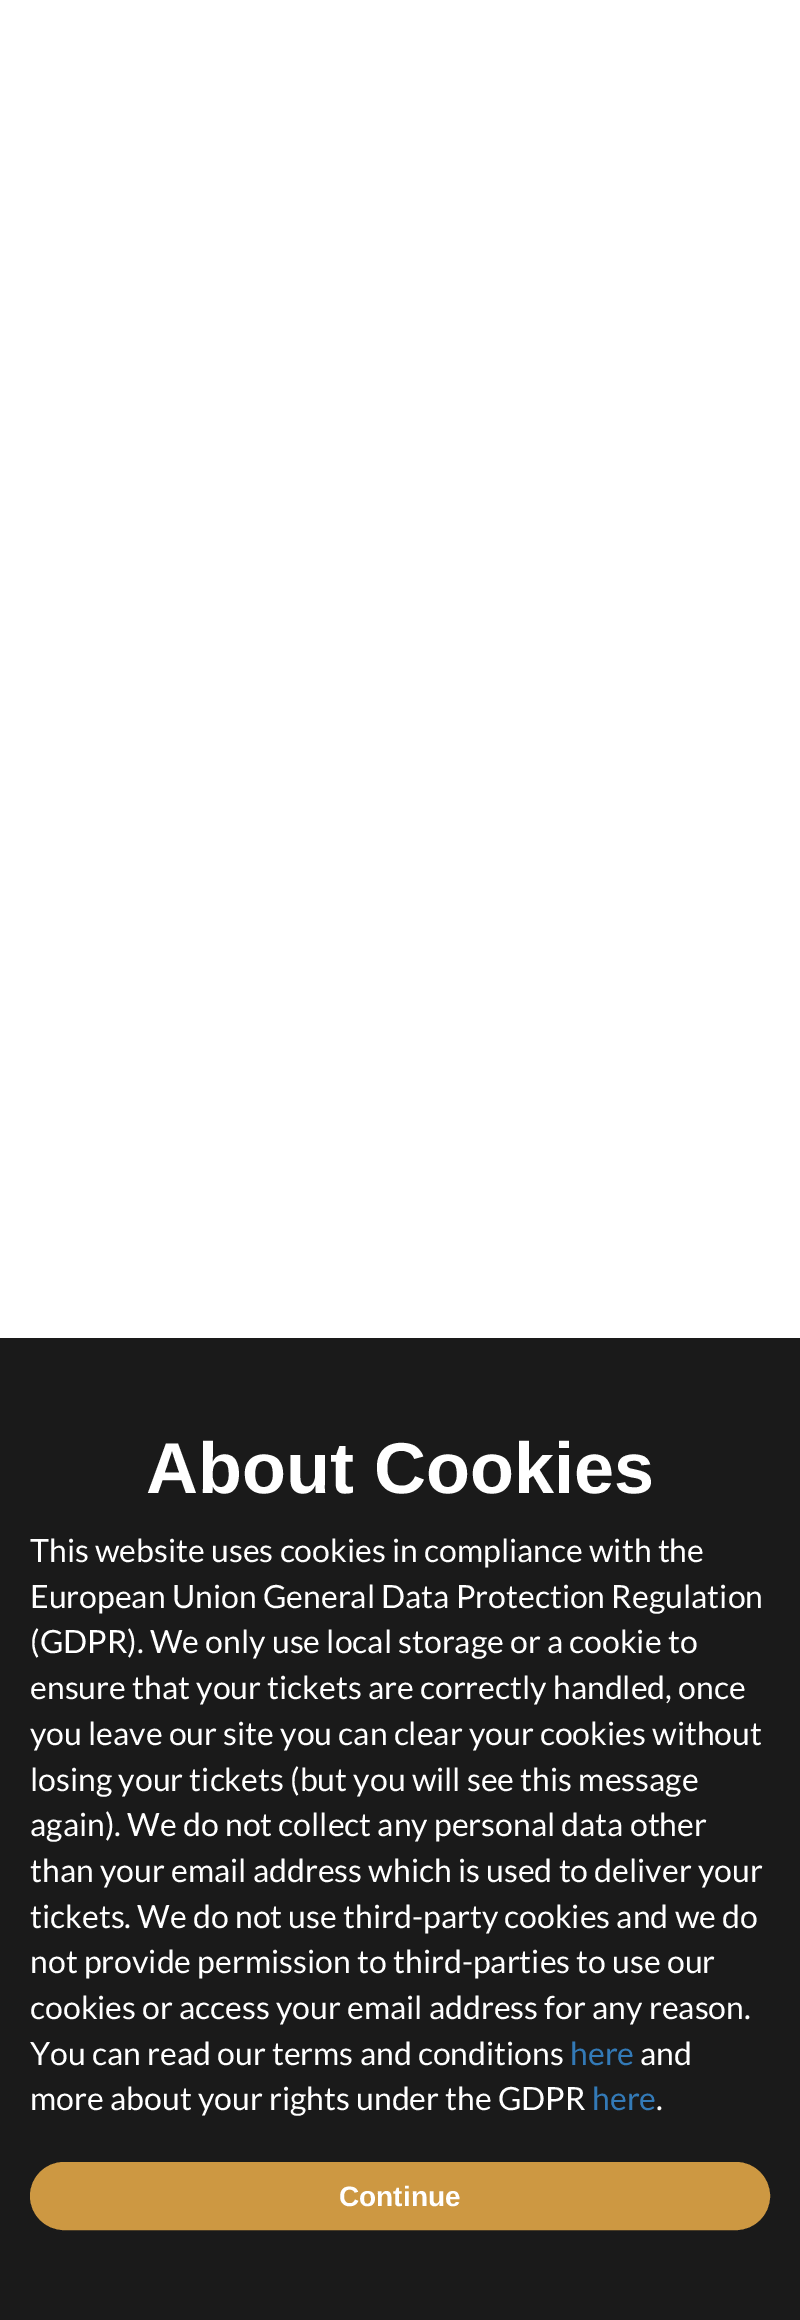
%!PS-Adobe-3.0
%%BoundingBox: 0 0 800 2320
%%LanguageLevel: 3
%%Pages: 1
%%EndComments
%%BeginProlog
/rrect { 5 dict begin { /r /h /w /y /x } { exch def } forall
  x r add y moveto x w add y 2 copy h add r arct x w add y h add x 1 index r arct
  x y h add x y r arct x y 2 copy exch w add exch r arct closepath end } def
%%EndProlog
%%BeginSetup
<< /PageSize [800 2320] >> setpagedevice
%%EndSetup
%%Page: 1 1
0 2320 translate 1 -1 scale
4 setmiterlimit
1 setgray
0 0 800 2320 rectfill
0.102 setgray
0 1338 800 982 rectfill
0.804 0.596 0.259 setrgbcolor
31 2163 738 66 33 rrect gsave fill grestore
2 setlinewidth
stroke
/LiberationSans-Bold [72 0 0 -72 0 0] selectfont
1 setgray
146 1493 moveto (About Cookies) show
/Lato-Regular [32 0 0 -32 0 0] selectfont
30 1562 moveto (This website uses cookies in compliance with the) show
30 1608 moveto (European Union General Data Protection Regulation) show
30 1653 moveto (\(GDPR\). We only use local storage or a cookie to) show
30 1699 moveto (ensure that your tickets are correctly handled, once) show
30 1745 moveto (you leave our site you can clear your cookies without) show
30 1791 moveto (losing your tickets \(but you will see this message) show
30 1836 moveto (again\). We do not collect any personal data other) show
30 1882 moveto (than your email address which is used to deliver your) show
30 1928 moveto (tickets. We do not use third-party cookies and we do) show
30 1973 moveto (not provide permission to third-parties to use our) show
30 2019 moveto (cookies or access your email address for any reason.) show
30 2065 moveto (You can read our terms and conditions) show
0.2 0.478 0.718 setrgbcolor
570 2065 moveto (here) show
1 setgray
640 2065 moveto (and) show
30 2110 moveto (more about your rights under the GDPR) show
0.2 0.478 0.718 setrgbcolor
592 2110 moveto (here) show
1 setgray
656 2110 moveto (.) show
/LiberationSans-Bold [28 0 0 -28 0 0] selectfont
339 2206 moveto (Continue) show
showpage
%%EOF
